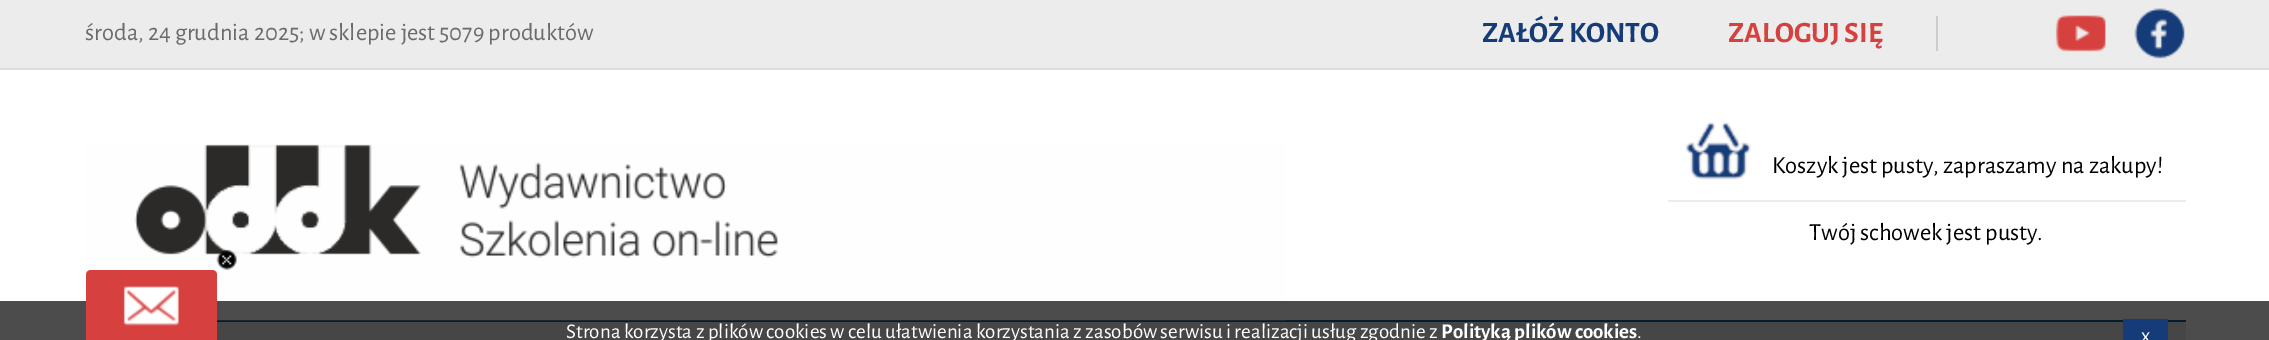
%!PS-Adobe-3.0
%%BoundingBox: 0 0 2269 340
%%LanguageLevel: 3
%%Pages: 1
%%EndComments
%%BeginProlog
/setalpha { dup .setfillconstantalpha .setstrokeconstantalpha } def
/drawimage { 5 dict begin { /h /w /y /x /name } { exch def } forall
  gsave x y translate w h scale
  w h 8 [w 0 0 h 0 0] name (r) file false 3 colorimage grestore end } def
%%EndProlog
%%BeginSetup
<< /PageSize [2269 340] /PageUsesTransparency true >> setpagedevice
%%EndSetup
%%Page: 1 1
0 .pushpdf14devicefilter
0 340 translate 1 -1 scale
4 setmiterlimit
1 setgray
0 0 2269 340 rectfill
0.925 setgray
0 0 2269 68 rectfill
0.871 setgray
0 68 2269 2 rectfill
0.8 setgray
1936 16 2 35 rectfill
(images/1.raw) 2055 15 51 37 drawimage
(images/2.raw) 2134 8 51 51 drawimage
0.067 0.369 0.58 setrgbcolor
217 320 1969 2 rectfill
(images/3.raw) 86 144 1201 177 drawimage
(images/4.raw) 1685 122 66 58 drawimage
0.925 setgray
1668 200 518 2 rectfill
217 322 1969 18 rectfill
(images/5.raw) 216 249 21 21 drawimage
0.7 setalpha
0 setgray
0 301 2269 39 rectfill
1 setalpha
0.839 0.251 0.243 setrgbcolor
newpath 91 270 moveto 212 270 lineto 215 270 217 272 217 275 curveto 217 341 lineto 86 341 lineto 86 275 lineto 86 272 88 270 91 270 curveto closepath fill
(images/6.raw) 123 286 56 40 drawimage
0.082 0.231 0.475 setrgbcolor
2123 319 45 21 rectfill
/AlegreyaSans-Regular [24.5 0 0 -24.5 0 0] selectfont
0.42 setgray
85 40 moveto (środa, 24 grudnia 2025; w sklepie jest 5079 produktów) show
/AlegreyaSans-Bold [29.5 0 0 -29.5 0 0] selectfont
0.082 0.231 0.475 setrgbcolor
1482 42 moveto (ZAŁÓŻ KONTO) show
0.839 0.251 0.243 setrgbcolor
1728 42 moveto (ZALOGUJ SIĘ) show
/AlegreyaSans-Regular [24.5 0 0 -24.5 0 0] selectfont
0 setgray
1772 173 moveto (Koszyk jest pusty, zapraszamy na zakupy!) show
1809 240 moveto (Twój schowek jest pusty.) show
/AlegreyaSans-Regular [21 0 0 -21 0 0] selectfont
1 setgray
566 338 moveto (Strona korzysta z plików cookies w celu ułatwienia korzystania z zasobów serwisu i realizacji usług zgodnie z) show
/AlegreyaSans-Bold [21 0 0 -21 0 0] selectfont
1441 338 moveto (Polityką plików cookies) show
/AlegreyaSans-Regular [21 0 0 -21 0 0] selectfont
1637 338 moveto (.) show
2141 342 moveto (x) show
.poppdf14devicefilter showpage
%%EOF
